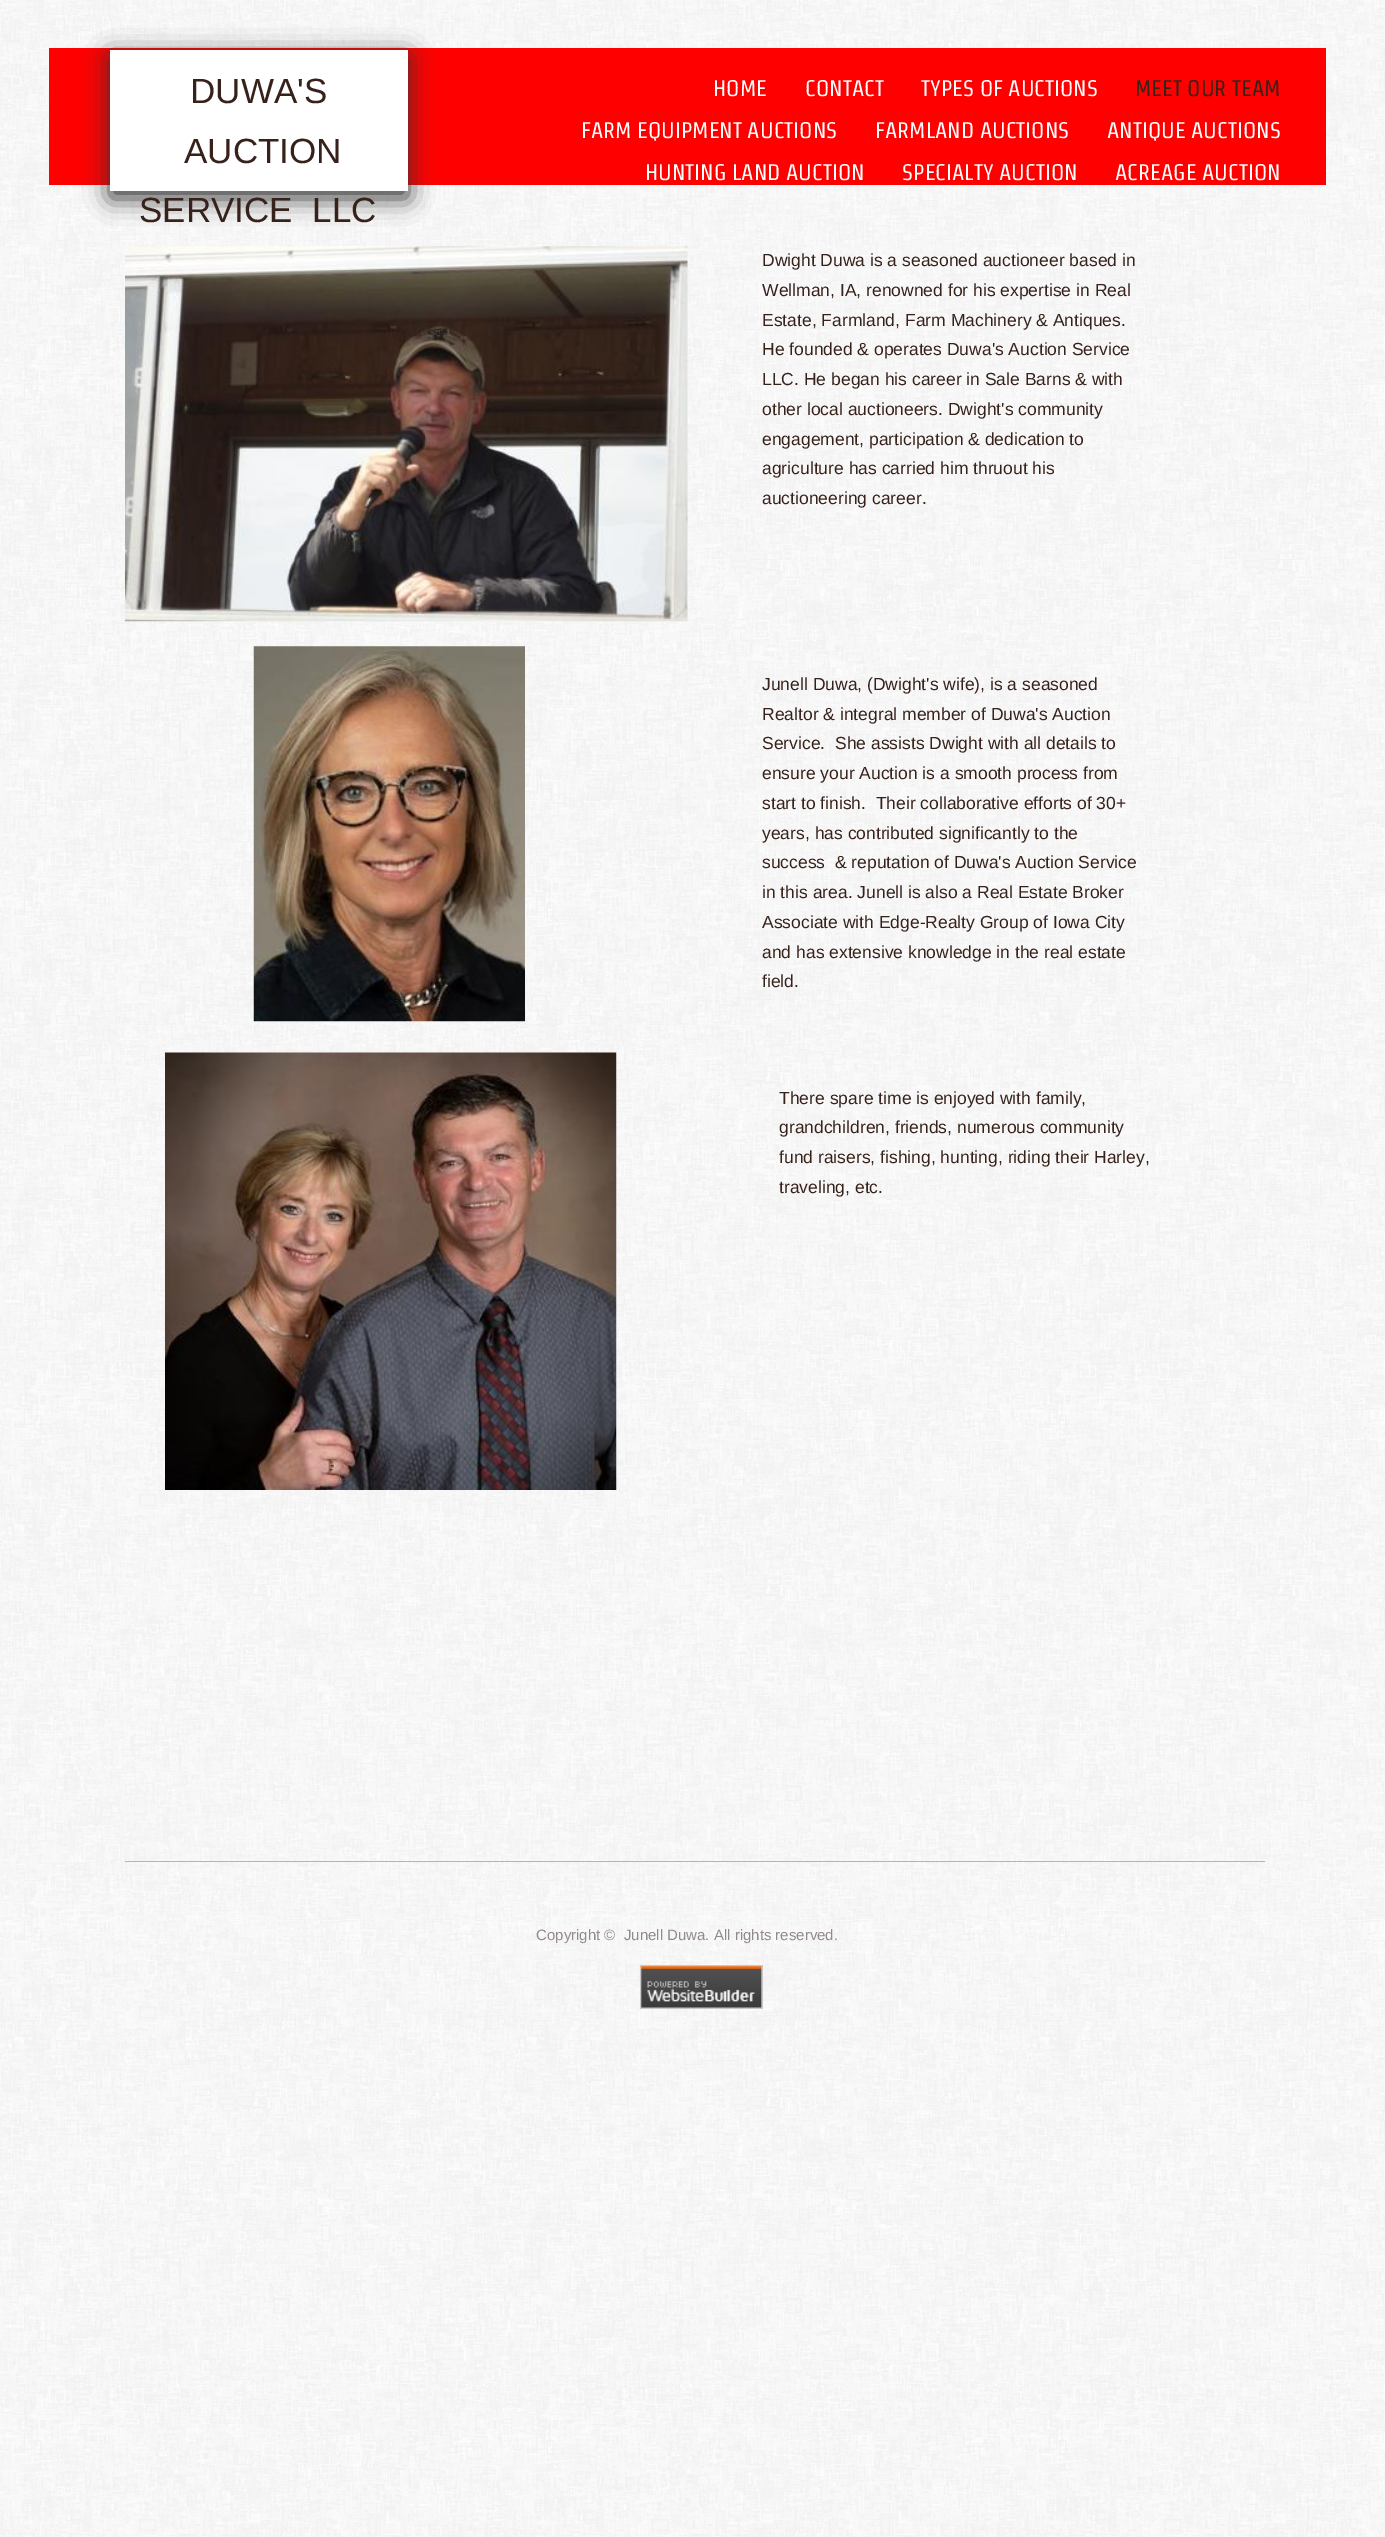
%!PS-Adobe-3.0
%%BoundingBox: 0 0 1385 2537
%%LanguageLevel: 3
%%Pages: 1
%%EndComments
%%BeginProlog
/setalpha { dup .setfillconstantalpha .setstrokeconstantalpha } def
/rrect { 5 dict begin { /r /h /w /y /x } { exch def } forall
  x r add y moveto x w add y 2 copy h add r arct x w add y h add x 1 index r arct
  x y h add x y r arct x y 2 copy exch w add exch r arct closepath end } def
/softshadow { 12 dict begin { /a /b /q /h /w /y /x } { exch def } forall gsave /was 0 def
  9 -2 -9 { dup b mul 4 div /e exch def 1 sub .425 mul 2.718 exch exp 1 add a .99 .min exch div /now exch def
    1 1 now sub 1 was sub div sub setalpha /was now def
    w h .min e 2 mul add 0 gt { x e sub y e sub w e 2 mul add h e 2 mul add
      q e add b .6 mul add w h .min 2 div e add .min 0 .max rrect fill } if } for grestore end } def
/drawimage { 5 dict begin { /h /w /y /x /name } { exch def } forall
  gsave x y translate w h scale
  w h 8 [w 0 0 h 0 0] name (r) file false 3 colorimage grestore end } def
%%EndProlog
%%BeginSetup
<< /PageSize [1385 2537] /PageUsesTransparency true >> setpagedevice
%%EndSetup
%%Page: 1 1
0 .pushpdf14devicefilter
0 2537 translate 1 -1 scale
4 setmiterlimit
1 setgray
0 0 1385 2537 rectfill
(images/1.raw) 0 0 1385 2537 drawimage
1 0 0 setrgbcolor
49 48 1277 137 rectfill
0.2 setgray
110 56 298 142 0 12.5 1 softshadow
1 setgray
110 50 298 141 rectfill
(images/2.raw) 125 246 563 376 drawimage
(images/3.raw) 253 646 272 376 drawimage
(images/4.raw) 165 1052 452 438 drawimage
0.722 0.702 0.69 setrgbcolor
125 1861 1140 1 rectfill
(images/5.raw) 640 1965 123 44 drawimage
/LiberationSans-Regular [35 0 0 -35 0 0] selectfont
0.216 0.133 0.106 setrgbcolor
190 103 moveto (DUWA'S) show
184 163 moveto (AUCTION) show
139 222 moveto (SERVICE  LLC) show
/Strait-Regular [22.5 0 0 -22.5 0 0] selectfont
1 setgray
713 96 moveto (HOME) show
805 96 moveto (CONTACT) show
921 96 moveto (TYPES OF AUCTIONS) show
0.216 0.133 0.106 setrgbcolor
1135 96 moveto (MEET OUR TEAM) show
1 setgray
581 138 moveto (FARM EQUIPMENT AUCTIONS) show
875 138 moveto (FARMLAND AUCTIONS) show
1107 138 moveto (ANTIQUE AUCTIONS) show
645 180 moveto (HUNTING LAND AUCTION) show
902 180 moveto (SPECIALTY AUCTION) show
1115 180 moveto (ACREAGE AUCTION) show
/LiberationSans-Regular [17.5 0 0 -17.5 0 0] selectfont
0.216 0.133 0.106 setrgbcolor
762 266 moveto (Dwight Duwa is a seasoned auctioneer based in) show
762 296 moveto (Wellman, IA, renowned for his expertise in Real) show
762 326 moveto (Estate, Farmland, Farm Machinery & Antiques.) show
762 355 moveto (He founded & operates Duwa's Auction Service) show
762 385 moveto (LLC. He began his career in Sale Barns & with) show
762 415 moveto (other local auctioneers. Dwight's community) show
762 445 moveto (engagement, participation & dedication to) show
762 474 moveto (agriculture has carried him thruout his) show
762 504 moveto (auctioneering career.) show
762 690 moveto (Junell Duwa, \(Dwight's wife\), is a seasoned) show
762 720 moveto (Realtor & integral member of Duwa's Auction) show
762 749 moveto (Service.  She assists Dwight with all details to) show
762 779 moveto (ensure your Auction is a smooth process from) show
762 809 moveto (start to finish.  Their collaborative efforts of 30+) show
762 839 moveto (years, has contributed significantly to the) show
762 868 moveto (success  & reputation of Duwa's Auction Service) show
762 898 moveto (in this area. Junell is also a Real Estate Broker) show
762 928 moveto (Associate with Edge-Realty Group of Iowa City) show
762 958 moveto (and has extensive knowledge in the real estate) show
762 987 moveto (field.) show
779 1104 moveto (There spare time is enjoyed with family,) show
779 1133 moveto (grandchildren, friends, numerous community) show
779 1163 moveto (fund raisers, fishing, hunting, riding their Harley,) show
779 1193 moveto (traveling, etc.) show
/LiberationSans-Regular [15 0 0 -15 0 0] selectfont
0.573 0.537 0.537 setrgbcolor
536 1940 moveto (Copyright ©  Junell Duwa. All rights reserved.) show
.poppdf14devicefilter showpage
%%EOF
